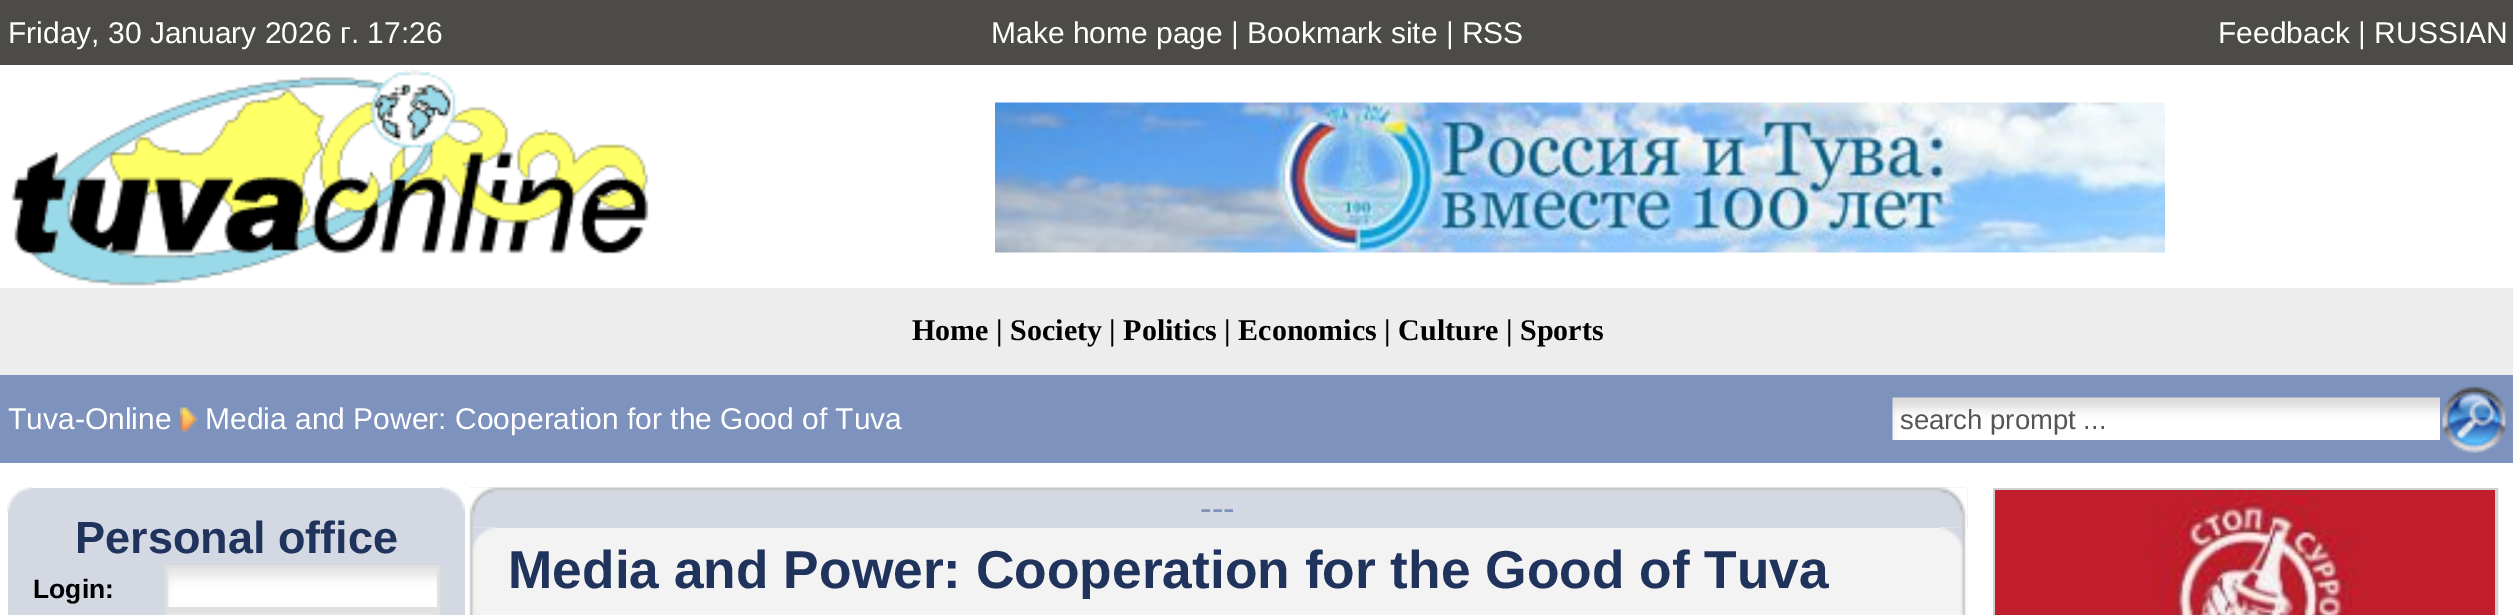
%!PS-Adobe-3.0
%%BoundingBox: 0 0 2513 615
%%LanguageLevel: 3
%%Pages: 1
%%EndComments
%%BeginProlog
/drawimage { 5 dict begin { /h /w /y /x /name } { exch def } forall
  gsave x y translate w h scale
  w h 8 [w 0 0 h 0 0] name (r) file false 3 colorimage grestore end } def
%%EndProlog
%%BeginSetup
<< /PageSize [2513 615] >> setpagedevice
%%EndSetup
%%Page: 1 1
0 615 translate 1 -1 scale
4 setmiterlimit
1 setgray
0 0 2513 615 rectfill
0.298 0.294 0.278 setrgbcolor
0 0 2513 65 rectfill
(images/1.raw) 11 69 638 217 drawimage
(images/2.raw) 995 102 1170 151 drawimage
0.929 setgray
0 288 2513 87 rectfill
0.49 0.573 0.741 setrgbcolor
0 375 2513 88 rectfill
(images/3.raw) 180 407 18 26 drawimage
(images/4.raw) 1892 397 548 43 drawimage
(images/5.raw) 2442 386 64 67 drawimage
0.831 0.847 0.886 setrgbcolor
8 488 457 127 rectfill
(images/6.raw) 7 487 26 26 drawimage
(images/7.raw) 440 487 25 24 drawimage
(images/8.raw) 168 568 269 39 drawimage
0.878 setgray
3 setlinewidth
166.5 566.5 272 42 rectstroke
0.902 setgray
newpath 166.5 611.5 moveto 438.5 611.5 lineto 438.5 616.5 lineto 166.5 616.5 lineto closepath gsave fill grestore
0.878 setgray
stroke
(images/9.raw) 468 487 27 41 drawimage
(images/10.raw) 469 487 26 28 drawimage
0.831 0.847 0.886 setrgbcolor
495 491 1445 37 rectfill
(images/11.raw) 495 487 1445 4 drawimage
1940 488 28 40 rectfill
(images/12.raw) 1940 487 28 41 drawimage
(images/13.raw) 1940 487 28 28 drawimage
(images/14.raw) 468 527 27 88 drawimage
(images/15.raw) 468 527 27 20 drawimage
0.953 setgray
495 528 1445 87 rectfill
1967 528 1 87 rectfill
(images/16.raw) 1940 527 28 88 drawimage
(images/17.raw) 1940 527 28 21 drawimage
0.816 setgray
1994.5 489.5 502 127 rectstroke
(images/18.raw) 1995 490 500 125 drawimage
/LiberationSans-Regular [30 0 0 -30 0 0] selectfont
1 setgray
8 43 moveto (Friday, 30 January 2026 г. 17:26) show
991 43 moveto (Make home page | Bookmark site | RSS) show
2218 43 moveto (Feedback | RUSSIAN) show
/LiberationSerif-Bold [30 0 0 -30 0 0] selectfont
0 setgray
912 340 moveto (Home | Society | Politics | Economics | Culture | Sports) show
/LiberationSans-Regular [30 0 0 -30 0 0] selectfont
1 setgray
8 429 moveto (Tuva-Online) show
205 429 moveto (Media and Power: Cooperation for the Good of Tuva) show
/LiberationSans-Regular [27.5 0 0 -27.5 0 0] selectfont
0.333 setgray
1900 429 moveto (search prompt ...) show
/LiberationSans-Bold [45 0 0 -45 0 0] selectfont
0.122 0.2 0.361 setrgbcolor
75 553 moveto (Personal office) show
/LiberationSans-Bold [26.5 0 0 -26.5 0 0] selectfont
0 setgray
33 598 moveto (Login:) show
/LiberationSans-Regular [35 0 0 -35 0 0] selectfont
0.49 0.573 0.741 setrgbcolor
1200 520 moveto (---) show
/LiberationSans-Bold [53.3 0 0 -53.3 0 0] selectfont
0.122 0.2 0.361 setrgbcolor
508 588 moveto (Media and Power: Cooperation for the Good of Tuva) show
showpage
%%EOF
